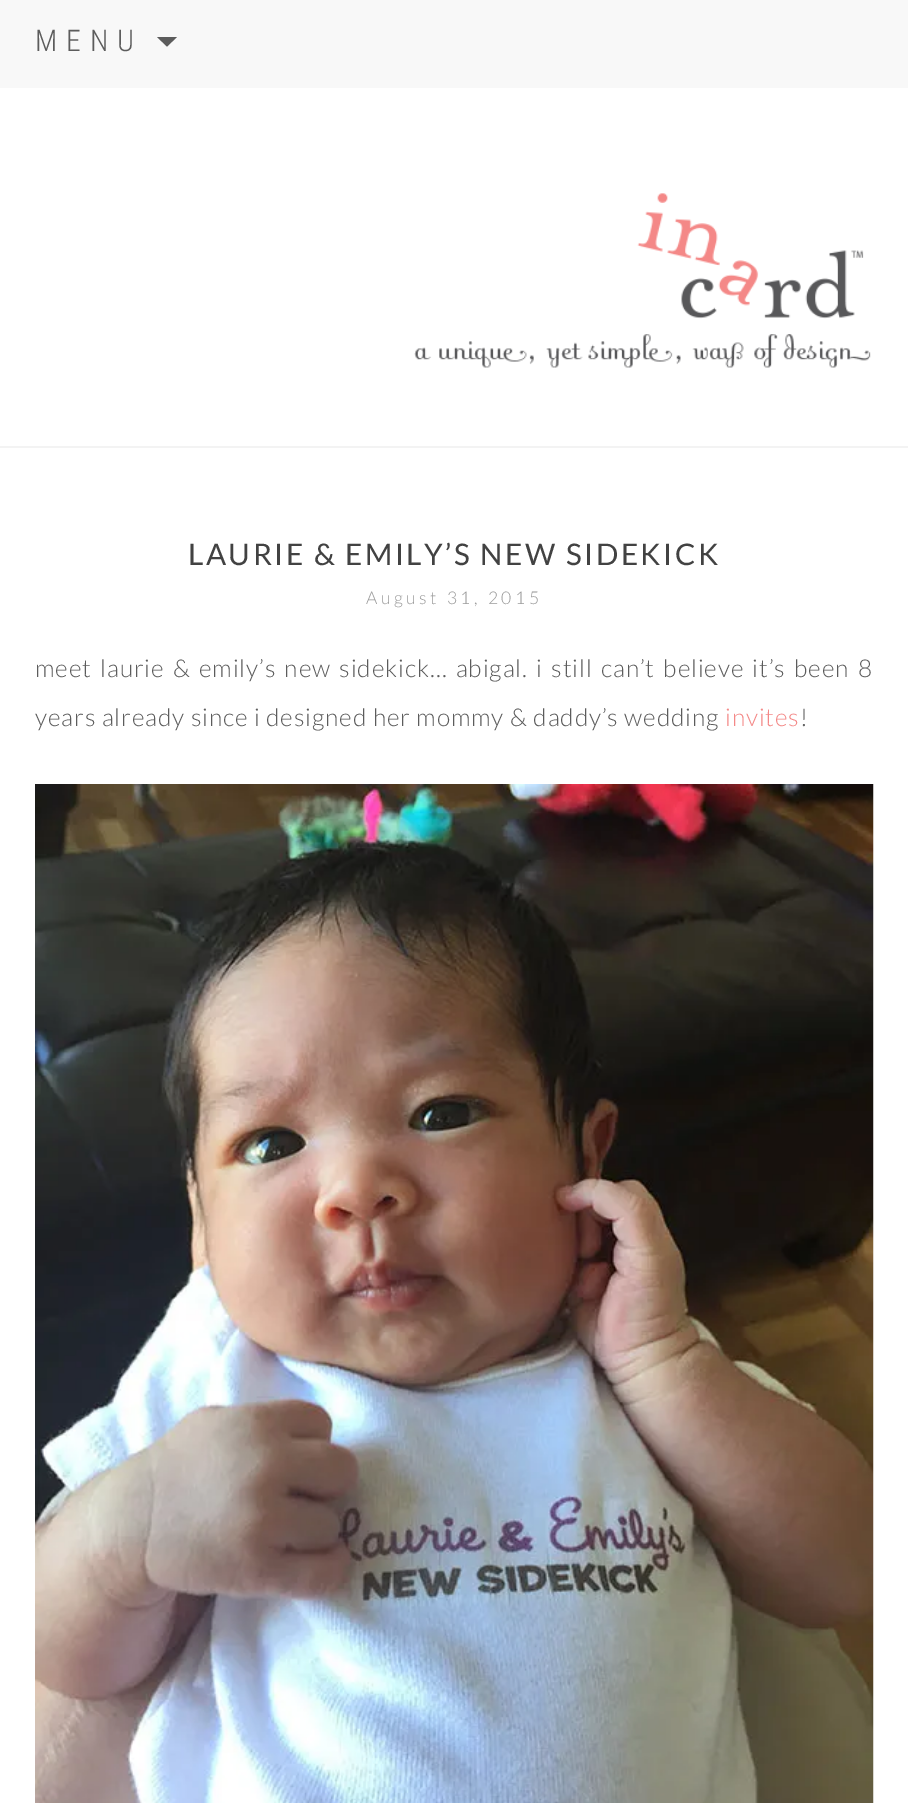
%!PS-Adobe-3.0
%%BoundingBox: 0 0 908 1803
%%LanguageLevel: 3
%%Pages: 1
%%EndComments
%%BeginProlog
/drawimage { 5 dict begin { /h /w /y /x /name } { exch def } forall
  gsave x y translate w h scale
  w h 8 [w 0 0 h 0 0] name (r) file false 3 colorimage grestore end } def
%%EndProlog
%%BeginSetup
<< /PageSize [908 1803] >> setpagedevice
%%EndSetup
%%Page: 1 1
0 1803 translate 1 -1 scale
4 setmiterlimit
1 setgray
0 0 908 1803 rectfill
0.973 setgray
0 0 908 88 rectfill
0.361 setgray
newpath 157 37 moveto 177 37 lineto 167 46.5 lineto closepath fill
(images/1.raw) 414 193 457 175 drawimage
0.953 setgray
0 446 908 2 rectfill
(images/2.raw) 35 784 839 1019 drawimage
/RobotoCondensed-Light [29.75 0 0 -29.75 0 0] selectfont
0.361 setgray
35 51 moveto 9 0 (MENU) ashow
/Lato-Regular [29.75 0 0 -29.75 0 0] selectfont
0.259 setgray
188 565 moveto 2.45 0 (LAURIE & EMILY’S NEW SIDEKICK) ashow
/Lato-Light [17.5 0 0 -17.5 0 0] selectfont
0.604 setgray
366 604 moveto 3.5 0 (August 31, 2015) ashow
/Lato-Light [24.5 0 0 -24.5 0 0] selectfont
0.361 setgray
35 677 moveto 2.75 0 32 0.88 0 (meet laurie & emily’s new sidekick… abigal. i still can’t believe it’s been 8) awidthshow
35 726 moveto 0.88 0 (years already since i designed her mommy & daddy’s wedding) ashow
0.957 0.533 0.529 setrgbcolor
725 726 moveto 0.88 0 (invites) ashow
0.361 setgray
800 726 moveto 0.88 0 (!) ashow
showpage
%%EOF
